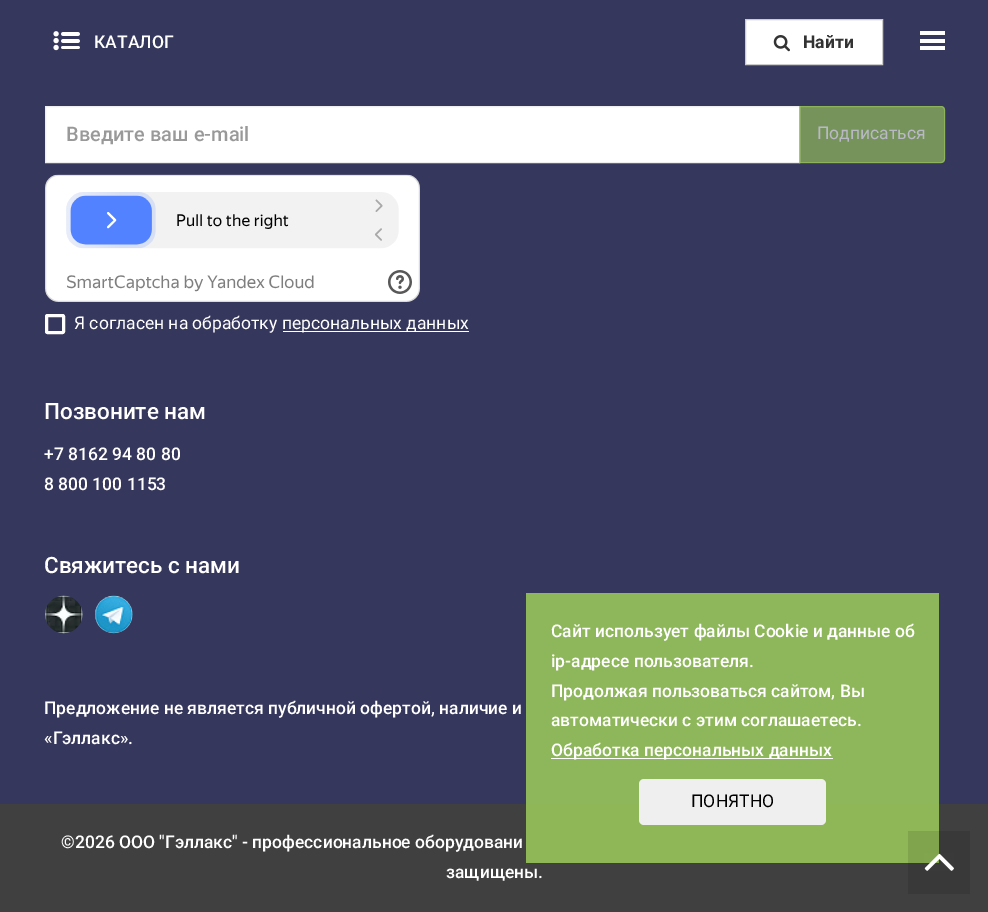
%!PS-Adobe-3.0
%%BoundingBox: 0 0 988 912
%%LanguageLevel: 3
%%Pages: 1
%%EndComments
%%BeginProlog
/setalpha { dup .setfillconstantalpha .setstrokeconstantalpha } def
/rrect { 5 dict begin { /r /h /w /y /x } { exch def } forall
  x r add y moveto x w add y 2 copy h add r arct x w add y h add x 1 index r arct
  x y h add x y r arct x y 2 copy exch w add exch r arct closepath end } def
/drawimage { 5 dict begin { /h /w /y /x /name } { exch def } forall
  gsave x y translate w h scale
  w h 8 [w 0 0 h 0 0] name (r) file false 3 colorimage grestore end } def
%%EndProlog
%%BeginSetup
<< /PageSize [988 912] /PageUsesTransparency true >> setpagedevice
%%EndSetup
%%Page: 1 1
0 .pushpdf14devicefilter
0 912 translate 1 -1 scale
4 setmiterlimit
0.212 0.216 0.361 setrgbcolor
0 0 988 912 rectfill
(images/1.raw) 53 31 27 20 drawimage
1 setgray
newpath 745.5 19.5 moveto 882.5 19.5 lineto 882.5 64.5 lineto 745.5 64.5 lineto closepath gsave fill grestore
0.8 setgray
stroke
(images/2.raw) 773 35 17 17 drawimage
1 setgray
920 31 25 4 rectfill
920 39 25 4 rectfill
920 46 25 4 rectfill
newpath 45.5 106.5 moveto 799.5 106.5 lineto 799.5 162.5 lineto 45.5 162.5 lineto closepath gsave fill grestore
0.933 setgray
stroke
0.65 setalpha
0.596 0.769 0.353 setrgbcolor
newpath 799 106 moveto 941 106 lineto 943 106 945 108 945 110 curveto 945 159 lineto 945 161 943 163 941 163 curveto 799 163 lineto closepath fill
newpath 799.5 106.5 moveto 941 106.5 lineto 943 106.5 944.5 108 944.5 110 curveto 944.5 159 lineto 944.5 161 943 162.5 941 162.5 curveto 799.5 162.5 lineto closepath stroke
1 setalpha
(images/3.raw) 45 174 375 128 drawimage
1 setgray
3 setlinewidth
46.5 315.5 17 17 1 rrect stroke
283 331 186 1 rectfill
(images/4.raw) 45 595 38 39 drawimage
(images/5.raw) 94 595 39 39 drawimage
0.251 setgray
0 804 988 108 rectfill
0.9 setalpha
0.596 0.769 0.353 setrgbcolor
526 593 413 270 rectfill
1 setalpha
1 setgray
551 758 282 1 rectfill
0.937 setgray
639 779 187 46 5 rrect fill
0.1 setalpha
0 setgray
908 831 62 63 rectfill
1 setalpha
(images/6.raw) 924 853 30 18 drawimage
/Roboto-Medium [17.5 0 0 -17.5 0 0] selectfont
1 setgray
94 48 moveto (КАТАЛОГ) show
/Roboto-Bold [17.5 0 0 -17.5 0 0] selectfont
0.2 setgray
803 48 moveto (Найти) show
/Roboto-Medium [20 0 0 -20 0 0] selectfont
0.6 setgray
66 141 moveto (Введите ваш e-mail) show
/Roboto-Regular [17.5 0 0 -17.5 0 0] selectfont
0.725 0.725 0.776 setrgbcolor
817 139 moveto (Подписаться) show
1 setgray
74 329 moveto (Я согласен на обработку) show
282 329 moveto (персональных данных) show
/Roboto-Medium [22.5 0 0 -22.5 0 0] selectfont
44 419 moveto (Позвоните нам) show
/Roboto-Medium [17.5 0 0 -17.5 0 0] selectfont
44 460 moveto (+7 8162 94 80 80) show
44 490 moveto (8 800 100 1153) show
/Roboto-Medium [22.5 0 0 -22.5 0 0] selectfont
44 573 moveto (Свяжитесь с нами) show
/Roboto-Medium [17.5 0 0 -17.5 0 0] selectfont
44 714 moveto (Предложение не является публичной офертой, наличие и) show
44 744 moveto («Гэллакс».) show
551 637 moveto (Сайт использует файлы Cookie и данные об) show
551 667 moveto (ip-адресе пользователя.) show
551 697 moveto (Продолжая пользоваться сайтом, Вы) show
551 726 moveto (автоматически с этим соглашаетесь.) show
551 756 moveto (Обработка персональных данных) show
/Roboto-Regular [17.5 0 0 -17.5 0 0] selectfont
0 setgray
691 807 moveto (ПОНЯТНО) show
/Roboto-Medium [17.5 0 0 -17.5 0 0] selectfont
1 setgray
61 848 moveto (©2026 ООО "Гэллакс" - профессиональное оборудовани) show
446 878 moveto (защищены.) show
.poppdf14devicefilter showpage
%%EOF
